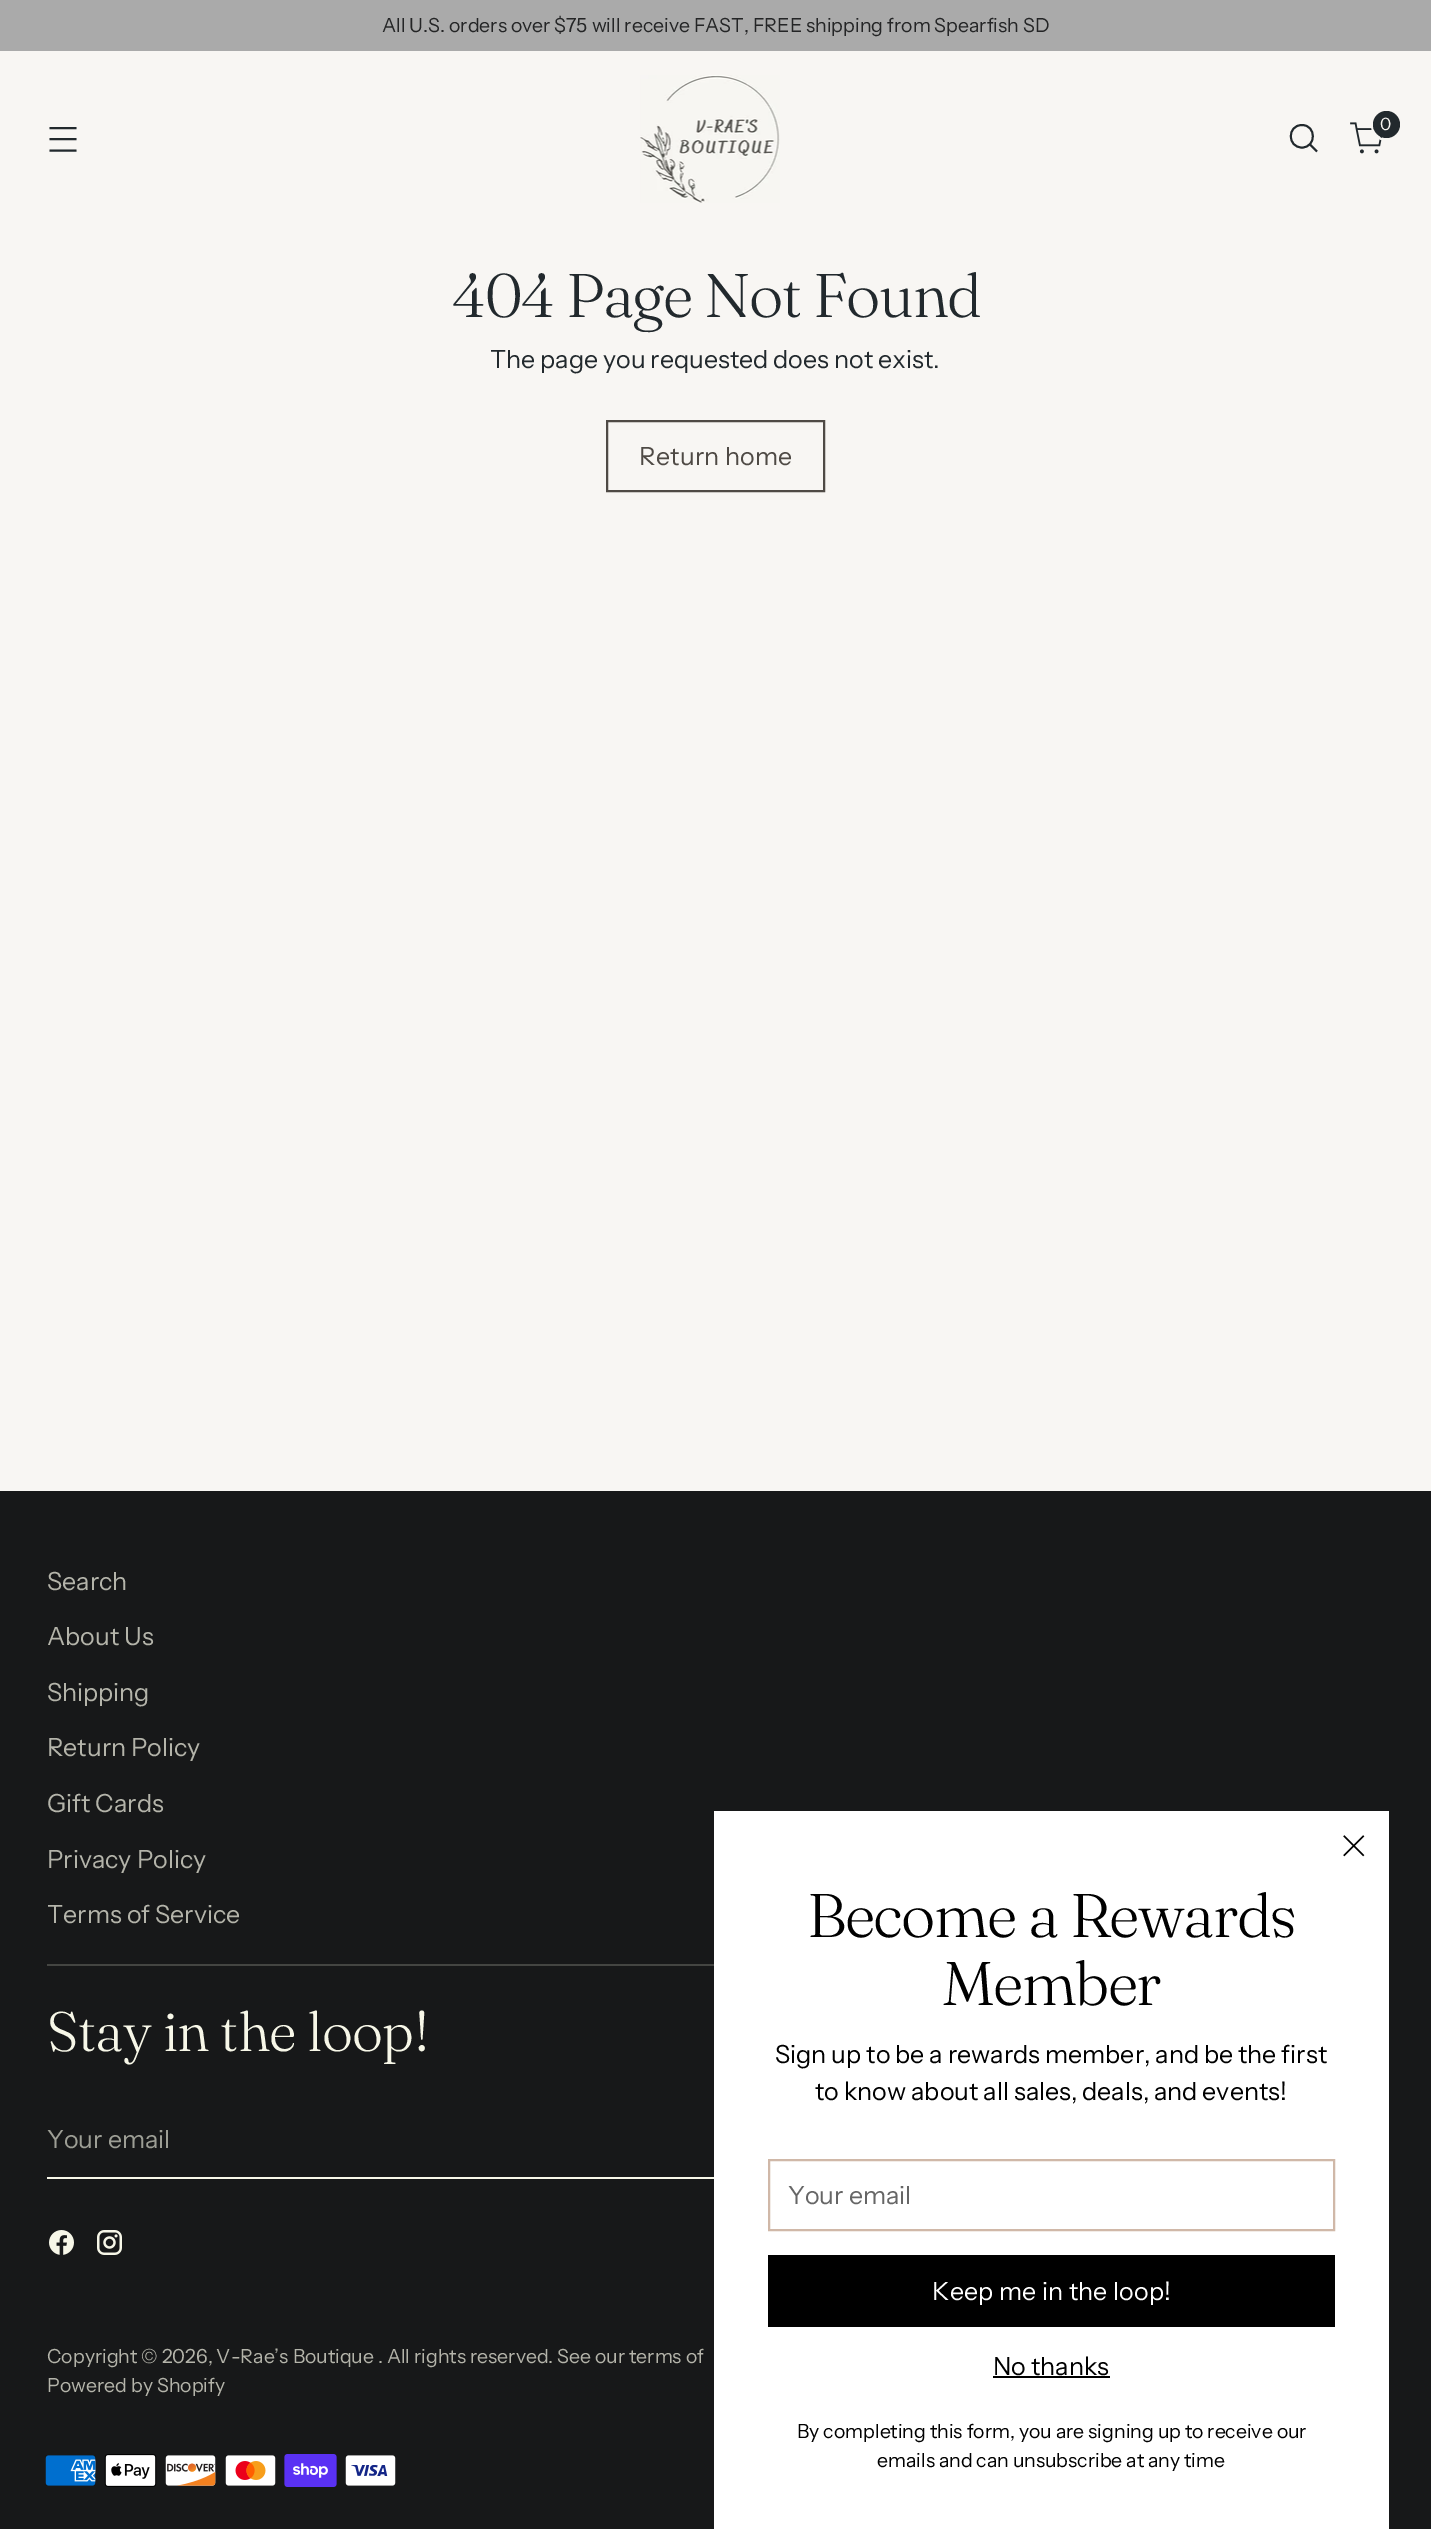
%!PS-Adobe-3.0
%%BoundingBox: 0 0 1431 2529
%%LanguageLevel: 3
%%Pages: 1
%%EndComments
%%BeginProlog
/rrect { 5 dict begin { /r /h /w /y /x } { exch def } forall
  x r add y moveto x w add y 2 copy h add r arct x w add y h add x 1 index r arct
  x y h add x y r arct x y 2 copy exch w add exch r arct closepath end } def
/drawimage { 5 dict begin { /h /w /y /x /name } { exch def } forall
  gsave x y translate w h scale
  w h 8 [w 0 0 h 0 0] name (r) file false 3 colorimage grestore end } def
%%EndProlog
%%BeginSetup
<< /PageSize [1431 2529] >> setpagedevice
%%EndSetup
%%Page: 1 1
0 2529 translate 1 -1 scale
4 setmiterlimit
0.973 0.965 0.953 setrgbcolor
0 0 1431 2529 rectfill
0.667 setgray
0 0 1431 51 rectfill
(images/1.raw) 640 75 140 128 drawimage
0.133 0.161 0.176 setrgbcolor
1.9 setlinewidth
1 setlinecap
newpath 1302 147.5 moveto 1316.5 147.5 1316.5 125 1302 125 curveto 1287 125 1287 147.5 1302 147.5 curveto closepath stroke
0 setlinecap
newpath 1310 144.5 moveto 1317 151.5 lineto stroke
(images/2.raw) 1350 122 32 32 drawimage
0.973 0.965 0.953 setrgbcolor
2 setlinewidth
1372 111 30 29 14.5 rrect stroke
0.133 0.161 0.176 setrgbcolor
newpath 1386.5 124.5 13.5 0 360 arc closepath fill
1.9 setlinewidth
newpath 49.5 139 moveto 76.5 139 lineto 49.5 128 moveto 76.5 128 lineto 49.5 150.5 moveto 76.5 150.5 lineto stroke
0.31 0.29 0.271 setrgbcolor
2 setlinewidth
607 421 217 70 rectstroke
0.09 0.094 0.098 setrgbcolor
0 1491 1431 1038 rectfill
0.267 0.271 0.259 setrgbcolor
47 1964 667 2 rectfill
0.969 0.969 0.91 setrgbcolor
47 2177 667 2 rectfill
(images/3.raw) 49 2230 25 25 drawimage
(images/4.raw) 97 2230 25 25 drawimage
(images/5.raw) 45 2455 51 31 drawimage
(images/6.raw) 104 2454 53 33 drawimage
(images/7.raw) 165 2455 51 31 drawimage
(images/8.raw) 225 2455 51 31 drawimage
(images/9.raw) 284 2454 53 33 drawimage
(images/10.raw) 345 2455 51 31 drawimage
1 setgray
714 1811 675 718 rectfill
(images/11.raw) 1343 1835 22 22 drawimage
0.816 0.722 0.659 setrgbcolor
769 2160 565 70 rectstroke
gsave
768 2255 567 72 rectclip
0 setgray
newpath 634 2255 moveto 1428 2255 lineto 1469 2327 lineto 675 2327 lineto closepath fill
grestore
0 setgray
993 2376 117 2 rectfill
/InstrumentSans-Regular [19.45 0 0 -19.45 0 0] selectfont
0.141 0.145 0.149 setrgbcolor
382 32 moveto (All U.S. orders over $75 will receive FAST, FREE shipping from Spearfish SD) show
/InstrumentSans-Regular [17 0 0 -17 0 0] selectfont
0.973 0.965 0.953 setrgbcolor
1380 130 moveto (0) show
/Fraunces-Light [61.6 0 0 -61.6 0 0] selectfont
0.133 0.161 0.176 setrgbcolor
452 317 moveto -1.5 0 (404 Page Not Found) ashow
/InstrumentSans-Regular [25 0 0 -25 0 0] selectfont
490 368 moveto (The page you requested does not exist.) show
0.31 0.29 0.271 setrgbcolor
639 465 moveto 0.25 0 (Return home) ashow
0.706 0.706 0.667 setrgbcolor
47 1590 moveto (Search) show
47 1645 moveto (About Us) show
47 1701 moveto (Shipping) show
47 1756 moveto (Return Policy) show
47 1812 moveto (Gift Cards) show
47 1868 moveto (Privacy Policy) show
47 1923 moveto (Terms of Service) show
/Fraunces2-Light [55.5 0 0 -55.5 0 0] selectfont
0.969 0.969 0.91 setrgbcolor
47 2051 moveto -0.75 0 (Stay in the loop!) ashow
/InstrumentSans-Regular [25 0 0 -25 0 0] selectfont
0.616 0.62 0.584 setrgbcolor
47 2148 moveto (Your email) show
/InstrumentSans-Regular [19.45 0 0 -19.45 0 0] selectfont
0.706 0.706 0.667 setrgbcolor
47 2363 moveto (Copyright © 2026, V-Rae’s Boutique . All rights reserved. See our terms of) show
47 2392 moveto (Powered by Shopify) show
/Fraunces-Light [61.6 0 0 -61.6 0 0] selectfont
0 setgray
807 1937 moveto -1.5 0 (Become a Rewards) ashow
942 2005 moveto -1.5 0 (Member) ashow
/InstrumentSans-Regular [25 0 0 -25 0 0] selectfont
775 2063 moveto (Sign up to be a rewards member, and be the first) show
815 2100 moveto (to know about all sales, deals, and events!) show
0.4 setgray
788 2204 moveto (Your email) show
1 setgray
932 2300 moveto 0.25 0 (Keep me in the loop!) ashow
0 setgray
993 2375 moveto (No thanks) show
/InstrumentSans-Regular [19.45 0 0 -19.45 0 0] selectfont
797 2438 moveto (By completing this form, you are signing up to receive our) show
877 2467 moveto (emails and can unsubscribe at any time) show
showpage
%%EOF
